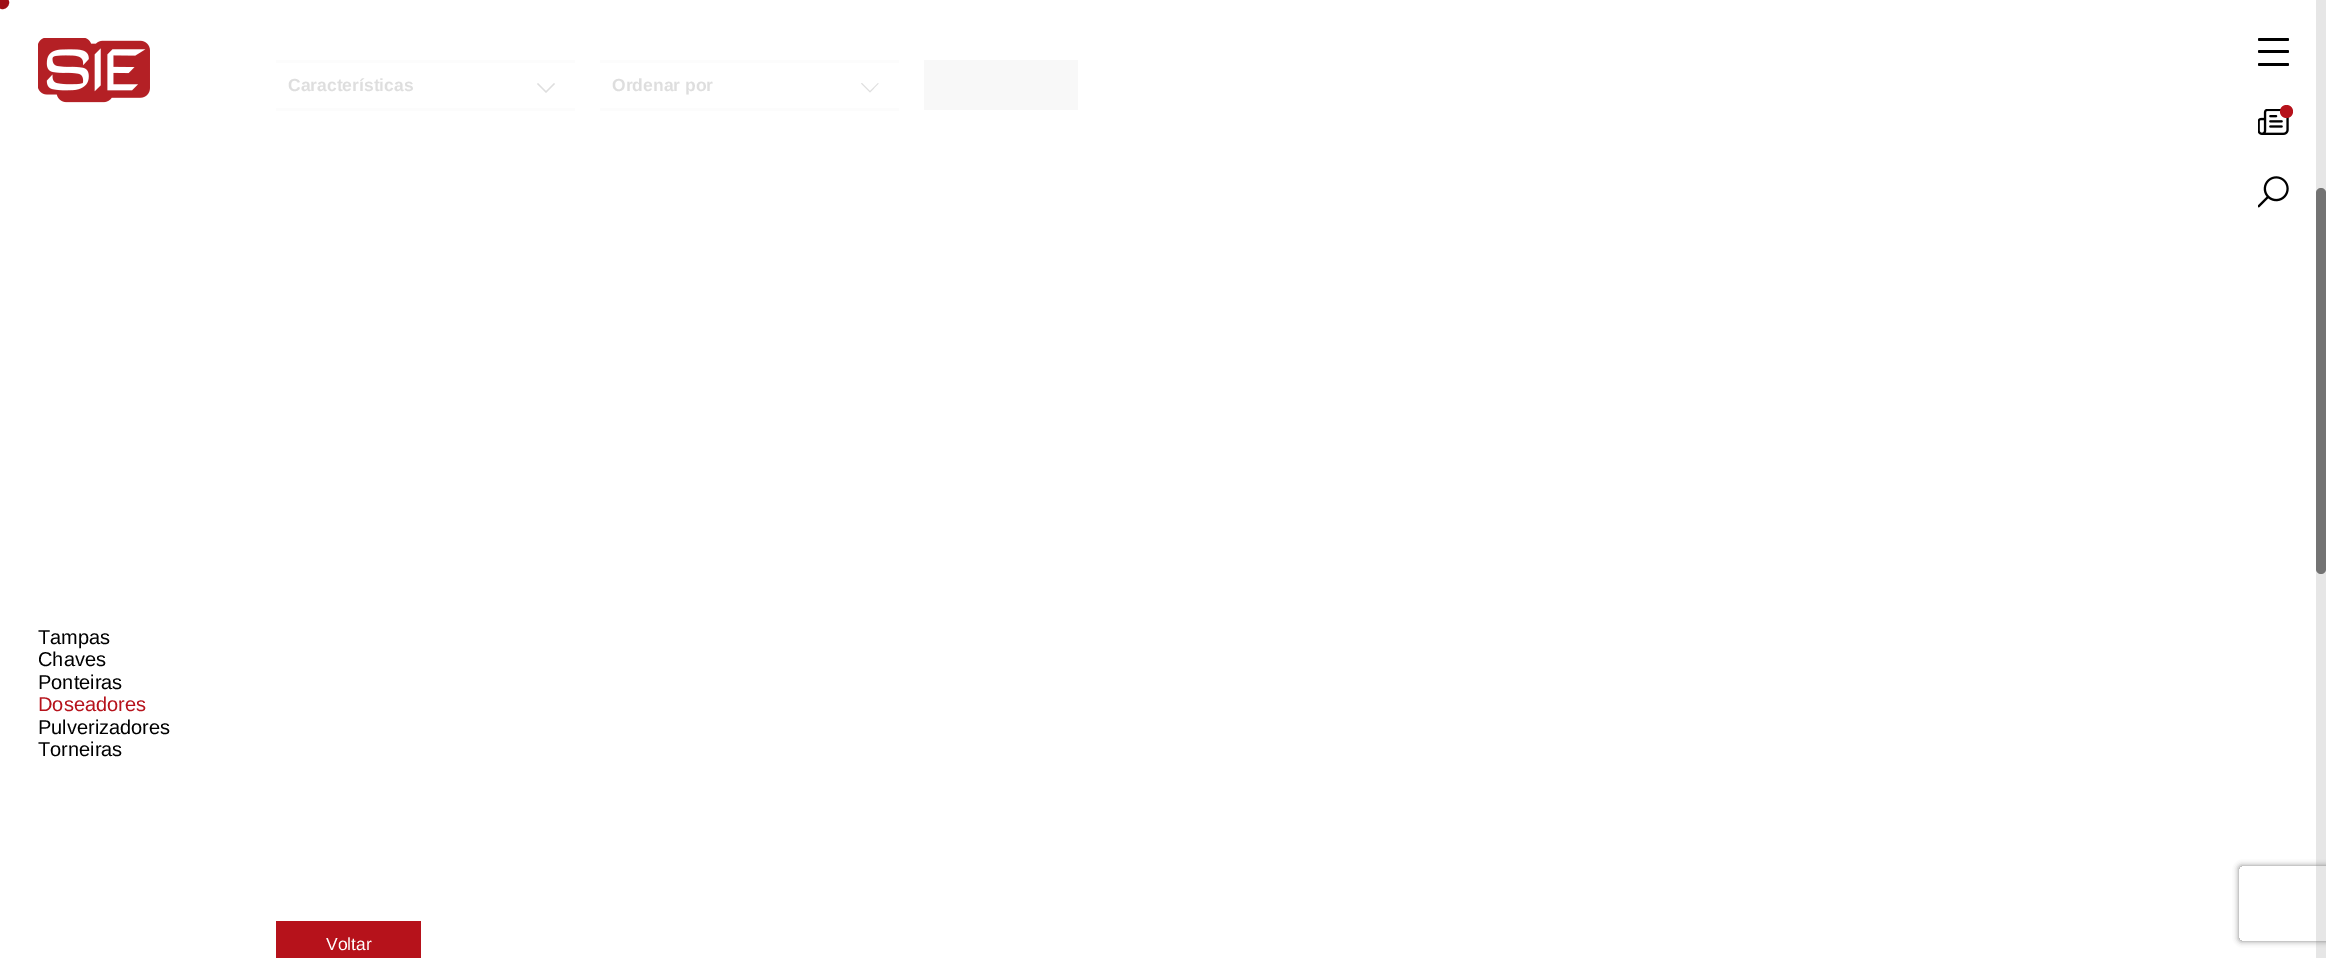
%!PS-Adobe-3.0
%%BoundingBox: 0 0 2326 958
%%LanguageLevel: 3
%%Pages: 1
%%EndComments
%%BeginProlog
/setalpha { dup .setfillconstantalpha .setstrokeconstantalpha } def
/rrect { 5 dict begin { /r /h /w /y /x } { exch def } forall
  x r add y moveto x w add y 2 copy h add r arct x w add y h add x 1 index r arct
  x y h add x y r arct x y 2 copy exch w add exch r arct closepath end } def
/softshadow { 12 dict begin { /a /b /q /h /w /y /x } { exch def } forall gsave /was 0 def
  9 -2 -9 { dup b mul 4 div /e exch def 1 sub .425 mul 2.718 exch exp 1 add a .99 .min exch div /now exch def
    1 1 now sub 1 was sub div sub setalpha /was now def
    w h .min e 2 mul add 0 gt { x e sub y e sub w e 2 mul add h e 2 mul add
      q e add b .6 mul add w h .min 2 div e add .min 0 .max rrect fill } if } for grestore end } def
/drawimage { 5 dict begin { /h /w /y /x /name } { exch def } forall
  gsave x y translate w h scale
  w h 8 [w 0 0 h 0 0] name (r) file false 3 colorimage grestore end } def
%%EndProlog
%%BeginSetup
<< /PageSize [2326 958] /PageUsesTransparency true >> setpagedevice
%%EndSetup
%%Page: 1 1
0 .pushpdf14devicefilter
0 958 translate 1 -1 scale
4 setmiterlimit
1 setgray
0 0 2326 958 rectfill
0.62 0.059 0.09 setrgbcolor
newpath 2.5 2.5 5 0 360 arc closepath gsave fill grestore
3 setlinewidth
stroke
(images/1.raw) 38 38 112 65 drawimage
0 setgray
2258 50 31 3 1.5 rrect fill
2258 38 31 3 1.5 rrect fill
2258 63 31 3 1.5 rrect fill
(images/2.raw) 2258 109 31 26 drawimage
0.714 0.071 0.106 setrgbcolor
newpath 2286.5 111.5 6.5 0 360 arc closepath fill
(images/3.raw) 2258 176 31 32 drawimage
0.988 setgray
276 60 299 3 rectfill
276 108 299 3 rectfill
0.871 setgray
newpath 555 84 moveto 554 83 lineto 546 91 lineto 538 83 lineto 537 84 lineto 546 93 lineto closepath fill
0.988 setgray
600 60 299 3 rectfill
600 108 299 3 rectfill
0.871 setgray
newpath 878.5 83.5 moveto 878 83 lineto 870 91 lineto 862 83 lineto 861 83.5 lineto 870 92.5 lineto closepath fill
0.973 setgray
924 60 154 50 rectfill
0.714 0.071 0.106 setrgbcolor
276 921 145 37 rectfill
0.902 setgray
2316 0 10 958 rectfill
0.451 setgray
2316 188 10 386 5 rrect fill
gsave
newpath 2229 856 moveto 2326 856 lineto 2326 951 lineto 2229 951 lineto closepath 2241.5 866 moveto 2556.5 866 lineto 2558 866 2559 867 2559 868.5 curveto 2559 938.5 lineto 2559 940 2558 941 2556.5 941 curveto 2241.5 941 lineto 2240 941 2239 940 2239 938.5 curveto 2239 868.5 lineto 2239 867 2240 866 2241.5 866 curveto closepath eoclip newpath
0.502 setgray
2239 866 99 75 2.5 3 1 softshadow
grestore
/LiberationSans-Bold [17.5 0 0 -17.5 0 0] selectfont
0.871 setgray
288 91 moveto (Características) show
612 91 moveto (Ordenar por) show
/LiberationSans-Regular [20 0 0 -20 0 0] selectfont
0 setgray
38 644 moveto (Tampas) show
38 666 moveto (Chaves) show
38 689 moveto (Ponteiras) show
0.714 0.071 0.106 setrgbcolor
38 711 moveto (Doseadores) show
0 setgray
38 734 moveto (Pulverizadores) show
38 756 moveto (Torneiras) show
/LiberationSans-Regular [17.5 0 0 -17.5 0 0] selectfont
1 setgray
326 950 moveto (Voltar) show
.poppdf14devicefilter showpage
%%EOF
